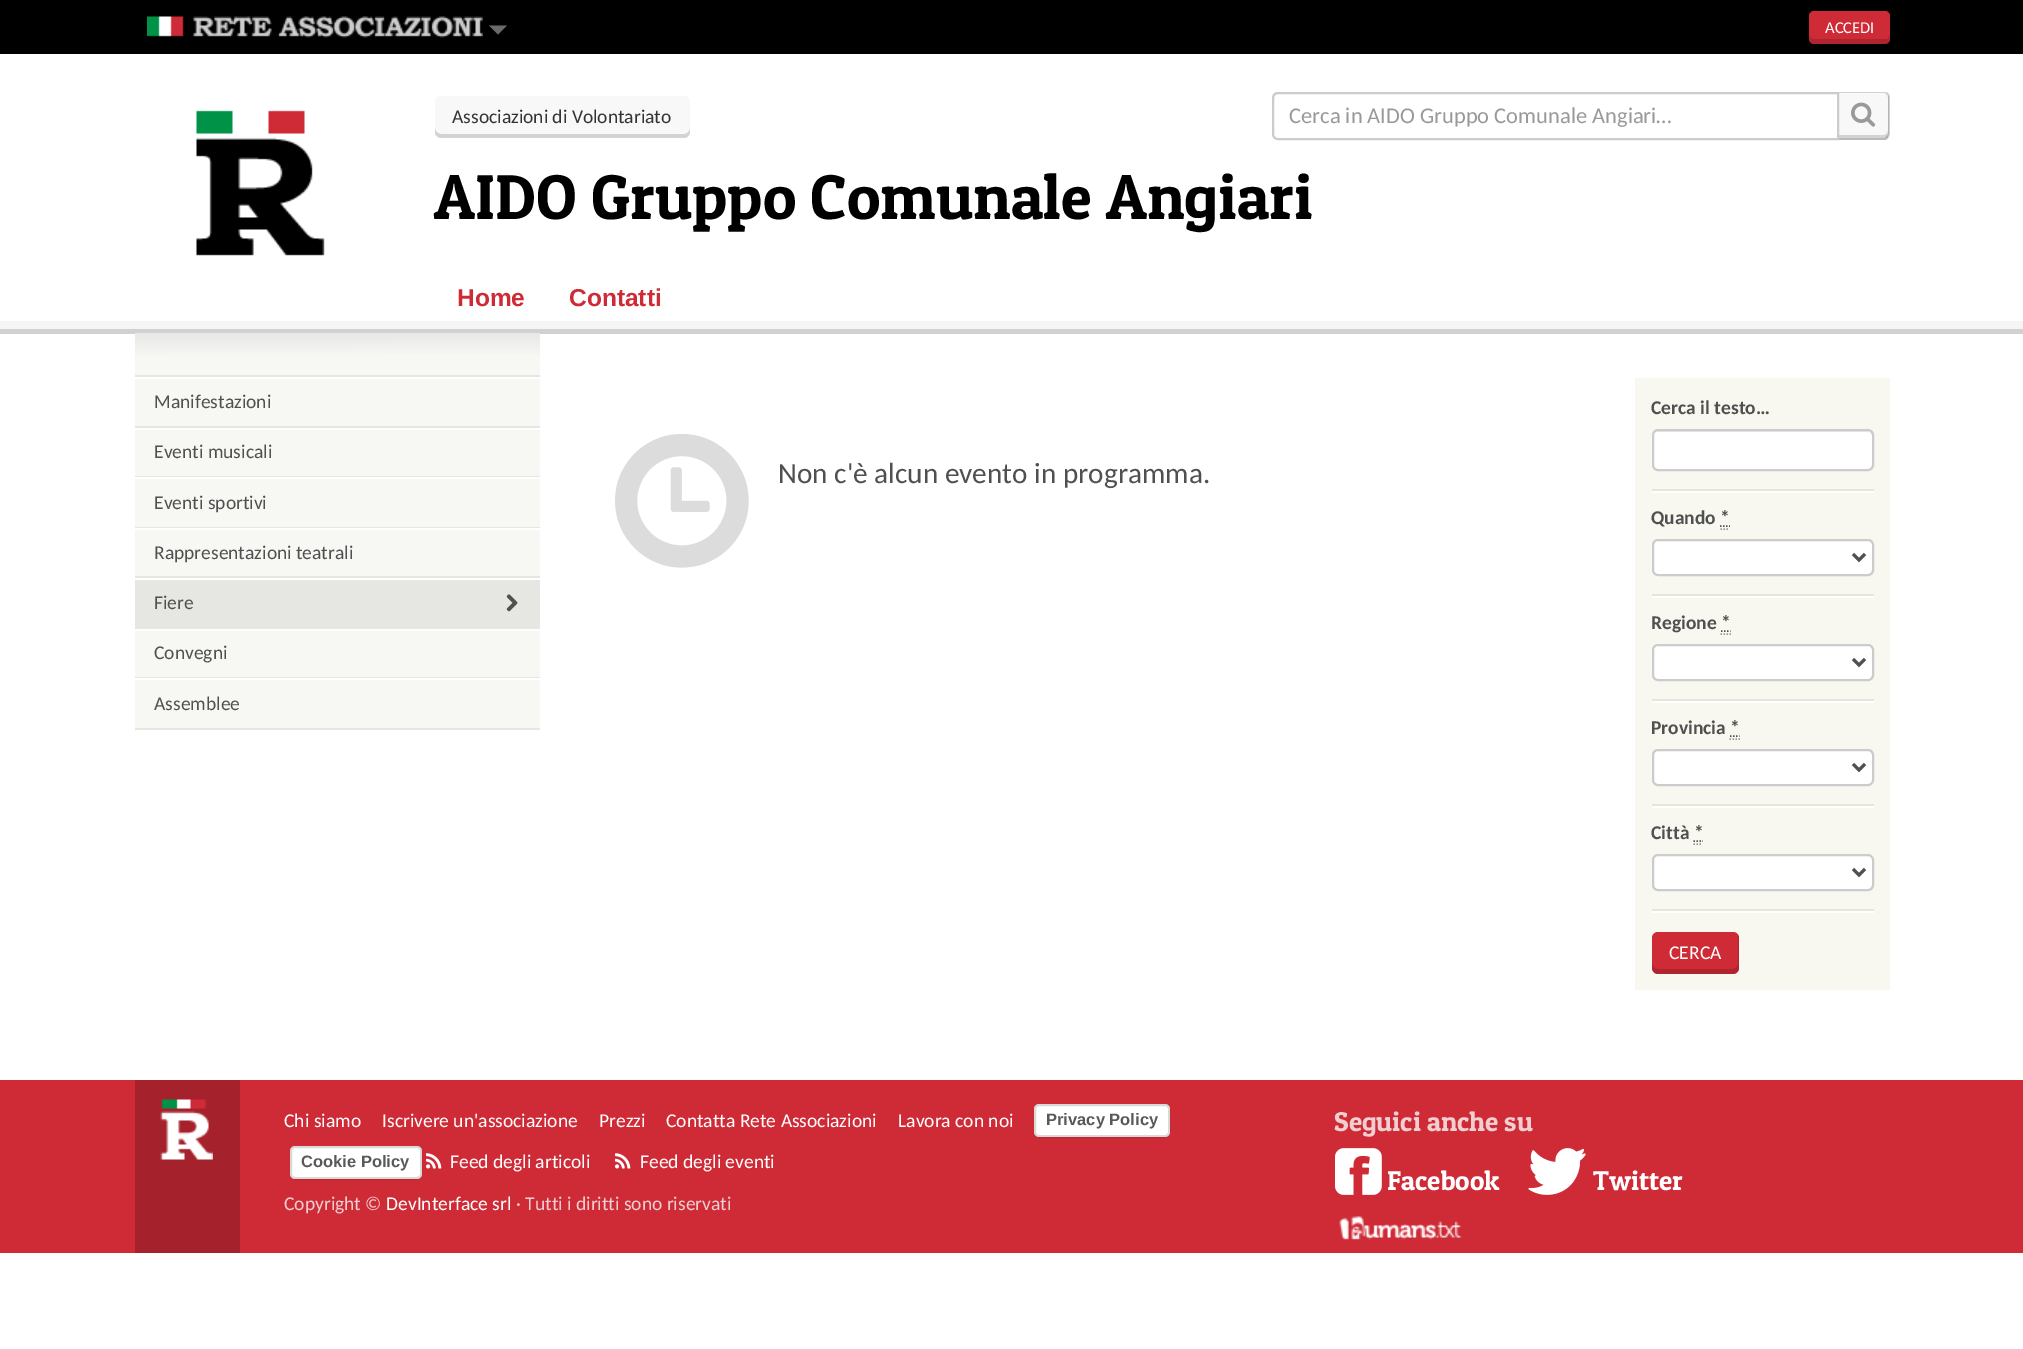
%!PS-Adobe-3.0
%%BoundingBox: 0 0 2023 1349
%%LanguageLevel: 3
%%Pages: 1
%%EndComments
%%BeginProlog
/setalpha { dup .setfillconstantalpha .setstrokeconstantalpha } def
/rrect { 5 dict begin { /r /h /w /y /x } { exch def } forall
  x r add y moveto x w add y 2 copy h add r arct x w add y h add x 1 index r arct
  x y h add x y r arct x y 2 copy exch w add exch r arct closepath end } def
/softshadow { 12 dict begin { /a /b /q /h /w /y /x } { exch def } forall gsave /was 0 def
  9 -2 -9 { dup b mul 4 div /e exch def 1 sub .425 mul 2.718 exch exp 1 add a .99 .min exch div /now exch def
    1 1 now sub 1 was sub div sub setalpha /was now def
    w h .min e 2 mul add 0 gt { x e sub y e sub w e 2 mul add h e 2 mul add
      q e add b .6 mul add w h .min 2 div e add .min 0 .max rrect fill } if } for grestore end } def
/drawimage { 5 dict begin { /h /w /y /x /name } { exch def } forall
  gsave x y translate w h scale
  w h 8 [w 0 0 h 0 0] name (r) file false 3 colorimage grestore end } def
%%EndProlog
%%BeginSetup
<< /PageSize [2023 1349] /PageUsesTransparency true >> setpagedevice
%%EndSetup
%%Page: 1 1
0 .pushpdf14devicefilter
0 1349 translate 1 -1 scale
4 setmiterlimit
1 setgray
0 0 2023 1349 rectfill
0 setgray
0 0 2023 54 rectfill
(images/1.raw) 147 16 336 22 drawimage
0.416 setgray
newpath 489 25.5 moveto 507 25.5 lineto 498 34.5 lineto closepath fill
0.808 0.169 0.216 setrgbcolor
1809 11 81 33 5 rrect fill
0.15 setalpha
0 setgray
newpath 1809 34 moveto 1809 47 1812 44 1826 44 curveto 1873 44 lineto 1887 44 1890 47 1890 34 curveto 1890 37 1888 39 1886 39 curveto 1814 39 lineto 1811 39 1809 37 1809 34 curveto closepath fill
1 setalpha
0.82 setgray
0 329 2023 5 rectfill
0.961 setgray
0 321 2023 8 rectfill
(images/2.raw) 196 110 129 146 drawimage
0.973 setgray
435 96 255 42 6 rrect fill
0.827 setgray
newpath 435 128 moveto 435 132 lineto 435 135 438 138 441 138 curveto 684 138 lineto 687 138 690 135 690 132 curveto 690 128 lineto 690 131 687 134 684 134 curveto 441 134 lineto 438 134 435 131 435 128 curveto closepath fill
0.973 setgray
newpath 1838 92 moveto 1884 92 lineto 1887.5 92 1890 94.5 1890 98 curveto 1890 134 lineto 1890 137.5 1887.5 140 1884 140 curveto 1838 140 lineto closepath fill
0.15 setalpha
0 setgray
newpath 1838 92 moveto 1839 93 lineto 1885 93 lineto 1887 95 lineto 1888 93 lineto 1887 92 1885 92 1884 92 curveto closepath fill
1 setalpha
0.827 setgray
newpath 1839 135 moveto 1839 138 lineto 1884 138 lineto 1887 138 1889 136 1889 133 curveto 1889 98 lineto 1889 97 1889 96 1888 95 curveto 1888 130 lineto 1888 133 1886 135 1884 135 curveto closepath fill
0.15 setalpha
0 setgray
newpath 1888 93 moveto 1889 94 1890 96 1890 98 curveto 1890 134 lineto 1890 135 1889 137 1888 138 curveto 1887 136 lineto 1888 134 lineto 1888 98 lineto 1888 97 1888 95 1887 95 curveto closepath fill
0.25 setalpha
newpath 1838 140 moveto 1839 138 lineto 1885 138 lineto 1887 136 lineto 1888 138 lineto 1886 140 lineto closepath fill
1 setalpha
1 setgray
newpath 1278 92 moveto 1839 92 lineto 1839 140 lineto 1278 140 lineto 1274.5 140 1272 137.5 1272 134 curveto 1272 98 lineto 1272 94.5 1274.5 92 1278 92 curveto closepath fill
0.925 setgray
newpath 1278 94 moveto 1838 94 lineto 1838 93 lineto 1279 93 lineto 1276 93 1274 96 1274 99 curveto 1274 97 1276 94 1278 94 curveto closepath fill
0.8 setgray
2 setlinewidth
newpath 1278 93 moveto 1838 93 lineto 1838 139 lineto 1278 139 lineto 1275 139 1273 137 1273 134 curveto 1273 98 lineto 1273 95 1275 93 1278 93 curveto closepath stroke
(images/3.raw) 1851 102 25 25 drawimage
gsave newpath 135 333 moveto 540 333 lineto 540 728 lineto 135 728 lineto closepath clip newpath
<< /ShadingType 2 /ColorSpace /DeviceRGB /Coords [337 333 338 729] /Extend [true true] /Function << /FunctionType 3 /Domain [0 1] /Functions [<< /FunctionType 2 /Domain [0 1] /C0 [0.91 0.91 0.91] /C1 [0.969 0.969 0.953] /N 1 >> << /FunctionType 2 /Domain [0 1] /C0 [0.969 0.969 0.953] /C1 [0.969 0.969 0.953] /N 1 >>] /Bounds [0.06] /Encode [0 1 0 1] >> >> shfill grestore
0.902 0.902 0.886 setrgbcolor
135 728 405 2 rectfill
135 375 405 2 rectfill
1 setgray
135 377 405 2 rectfill
0.902 0.902 0.886 setrgbcolor
135 426 405 2 rectfill
1 setgray
135 428 405 2 rectfill
0.902 0.902 0.886 setrgbcolor
135 476 405 1 rectfill
1 setgray
135 477 405 2 rectfill
0.902 0.902 0.886 setrgbcolor
135 527 405 1 rectfill
1 setgray
135 528 405 2 rectfill
0.902 0.902 0.886 setrgbcolor
135 576 405 53 rectfill
1 setgray
135 578 405 2 rectfill
(images/4.raw) 506 594 12 18 drawimage
135 629 405 2 rectfill
0.902 0.902 0.886 setrgbcolor
135 677 405 1 rectfill
1 setgray
135 678 405 2 rectfill
(images/5.raw) 615 434 134 134 drawimage
0.973 0.973 0.941 setrgbcolor
1635 378 255 612 rectfill
1 setgray
1652 491 222 2 rectfill
1652 429 222 42 6 rrect fill
0.925 setgray
newpath 1658 432 moveto 1868 432 lineto 1870 432 1872 434 1872 436 curveto 1872 433 1870 431 1867 431 curveto 1658 431 lineto 1655 431 1653 433 1653 436 curveto 1653 434 1655 432 1658 432 curveto closepath fill
0.8 setgray
1653 430 220 40 5 rrect stroke
0.898 0.898 0.867 setrgbcolor
1652 489 222 2 rectfill
1 setgray
1652 596 222 2 rectfill
0.314 setgray
1.5 setlinewidth
newpath 1720 526 moveto 1721.5 526 lineto 1723 526 moveto 1724.5 526 lineto 1726 526 moveto 1727.5 526 lineto 1729 526 moveto 1730 526 lineto stroke
0.6 setgray
newpath 1720.5 529 moveto 1722 529 lineto 1723.5 529 moveto 1725 529 lineto 1726.5 529 moveto 1728 529 lineto stroke
1 setgray
1653 540 220 35 5 rrect gsave fill grestore
0.8 setgray
2 setlinewidth
stroke
0.314 setgray
3 setlinewidth
newpath 1853 554 moveto 1859 560 lineto 1865 554 lineto stroke
0.898 0.898 0.867 setrgbcolor
1652 594 222 2 rectfill
1 setgray
1652 701 222 2 rectfill
0.314 setgray
1.5 setlinewidth
newpath 1721 631 moveto 1722.5 631 lineto 1724 631 moveto 1725.5 631 lineto 1727 631 moveto 1728.5 631 lineto 1730 631 moveto 1730.5 631 lineto stroke
0.6 setgray
newpath 1720.5 634 moveto 1722 634 lineto 1723.5 634 moveto 1725 634 lineto 1726.5 634 moveto 1728 634 lineto 1729.5 634 moveto 1731 634 lineto stroke
1 setgray
1653 645 220 35 5 rrect gsave fill grestore
0.8 setgray
2 setlinewidth
stroke
0.314 setgray
3 setlinewidth
newpath 1853 659 moveto 1859 665 lineto 1865 659 lineto stroke
0.898 0.898 0.867 setrgbcolor
1652 699 222 2 rectfill
1 setgray
1652 806 222 2 rectfill
0.314 setgray
1.5 setlinewidth
newpath 1730 736 moveto 1731.5 736 lineto 1733 736 moveto 1734.5 736 lineto 1736 736 moveto 1737.5 736 lineto 1739 736 moveto 1739.5 736 lineto stroke
0.6 setgray
newpath 1729.5 739 moveto 1731 739 lineto 1732.5 739 moveto 1734 739 lineto 1735.5 739 moveto 1737 739 lineto 1738.5 739 moveto 1740 739 lineto stroke
1 setgray
1653 750 220 35 5 rrect gsave fill grestore
0.8 setgray
2 setlinewidth
stroke
0.314 setgray
3 setlinewidth
newpath 1853 764 moveto 1859 770 lineto 1865 764 lineto stroke
0.898 0.898 0.867 setrgbcolor
1652 804 222 2 rectfill
1 setgray
1652 911 222 2 rectfill
0.314 setgray
1.5 setlinewidth
newpath 1693.5 841 moveto 1695 841 lineto 1696.5 841 moveto 1698 841 lineto 1699.5 841 moveto 1701 841 lineto 1702.5 841 moveto 1703 841 lineto stroke
0.6 setgray
newpath 1693.5 844 moveto 1695 844 lineto 1696.5 844 moveto 1698 844 lineto 1699.5 844 moveto 1701 844 lineto stroke
1 setgray
1653 855 220 35 5 rrect gsave fill grestore
0.8 setgray
2 setlinewidth
stroke
0.314 setgray
3 setlinewidth
newpath 1853 869 moveto 1859 875 lineto 1865 869 lineto stroke
0.898 0.898 0.867 setrgbcolor
1652 909 222 2 rectfill
0.808 0.169 0.216 setrgbcolor
1652 932 87 42 6 rrect fill
0.15 setalpha
0 setgray
newpath 1652 963 moveto 1652 968 lineto 1652 971 1655 974 1658 974 curveto 1733 974 lineto 1736 974 1739 971 1739 968 curveto 1739 938 lineto 1739 937 1739 936 1738 935 curveto 1738 963 lineto 1738 966 1736 969 1732 969 curveto 1658 969 lineto 1654 969 1652 966 1652 963 curveto closepath fill
1 setalpha
0.808 0.169 0.216 setrgbcolor
0 1080 2023 173 rectfill
0.647 0.133 0.173 setrgbcolor
135 1080 105 173 rectfill
(images/6.raw) 160 1099 53 61 drawimage
0 setgray
1035 1107 134 30 3 1 0.15 softshadow
1 setgray
1034 1104 136 33 5 rrect fill
0.15 setalpha
0 setgray
2 setlinewidth
1035 1105 134 31 4 rrect stroke
1 setalpha
291 1149 129 30 3 1 0.15 softshadow
1 setgray
290 1146 132 33 5 rrect fill
0.15 setalpha
0 setgray
291 1147 130 31 4 rrect stroke
1 setalpha
(images/7.raw) 426 1153 16 16 drawimage
(images/7.raw) 615 1153 16 16 drawimage
(images/8.raw) 1335 1148 47 47 drawimage
(images/9.raw) 1528 1148 58 47 drawimage
(images/10.raw) 1339 1216 123 24 drawimage
/Carlito-Regular [16.5 0 0 -16.5 0 0] selectfont
1 setgray
1825 33 moveto (ACCEDI) show
/Carlito-Regular [19.5 0 0 -19.5 0 0] selectfont
0.2 setgray
452 123 moveto (Associazioni di Volontariato) show
/Carlito-Regular [22.5 0 0 -22.5 0 0] selectfont
0.6 setgray
1289 123 moveto (Cerca in AIDO Gruppo Comunale Angiari…) show
/PatuaOne-Regular [63.4 0 0 -63.4 0 0] selectfont
0 setgray
434 219 moveto (AIDO Gruppo Comunale Angiari) show
/LiberationSans-Bold [24.5 0 0 -24.5 0 0] selectfont
0.808 0.169 0.216 setrgbcolor
457 306 moveto (Home) show
569 306 moveto (Contatti) show
/Carlito-Regular [19.5 0 0 -19.5 0 0] selectfont
0.314 setgray
154 408 moveto (Manifestazioni) show
154 458 moveto (Eventi musicali) show
154 509 moveto (Eventi sportivi) show
154 559 moveto (Rappresentazioni teatrali) show
154 609 moveto (Fiere) show
154 659 moveto (Convegni) show
154 710 moveto (Assemblee) show
/Carlito-Regular [29.25 0 0 -29.25 0 0] selectfont
778 483 moveto (Non c'è alcun evento in programma.) show
/Carlito-Bold [19.5 0 0 -19.5 0 0] selectfont
1651 414 moveto (Cerca il testo…) show
1651 524 moveto (Quando *) show
1651 629 moveto (Regione *) show
1651 734 moveto (Provincia *) show
1651 839 moveto (Città *) show
/Carlito-Regular [19.5 0 0 -19.5 0 0] selectfont
1 setgray
1669 959 moveto (CERCA) show
284 1127 moveto (Chi siamo) show
382 1127 moveto (Iscrivere un'associazione) show
599 1127 moveto (Prezzi) show
666 1127 moveto (Contatta Rete Associazioni) show
898 1127 moveto (Lavora con noi) show
/LiberationSans-Bold [16.5 0 0 -16.5 0 0] selectfont
0.349 setgray
1046 1125 moveto (Privacy Policy) show
301 1167 moveto (Cookie Policy) show
/Carlito-Regular [19.5 0 0 -19.5 0 0] selectfont
1 setgray
450 1168 moveto (Feed degli articoli) show
640 1168 moveto (Feed degli eventi) show
0.945 0.812 0.82 setrgbcolor
284 1210 moveto (Copyright ©) show
1 setgray
386 1210 moveto (DevInterface srl) show
0.945 0.812 0.82 setrgbcolor
516 1210 moveto (· Tutti i diritti sono riservati) show
/PatuaOne-Regular [27.25 0 0 -27.25 0 0] selectfont
1334 1131 moveto (Seguici anche su) show
1 setgray
1387 1190 moveto (Facebook) show
1593 1190 moveto (Twitter) show
.poppdf14devicefilter showpage
%%EOF
